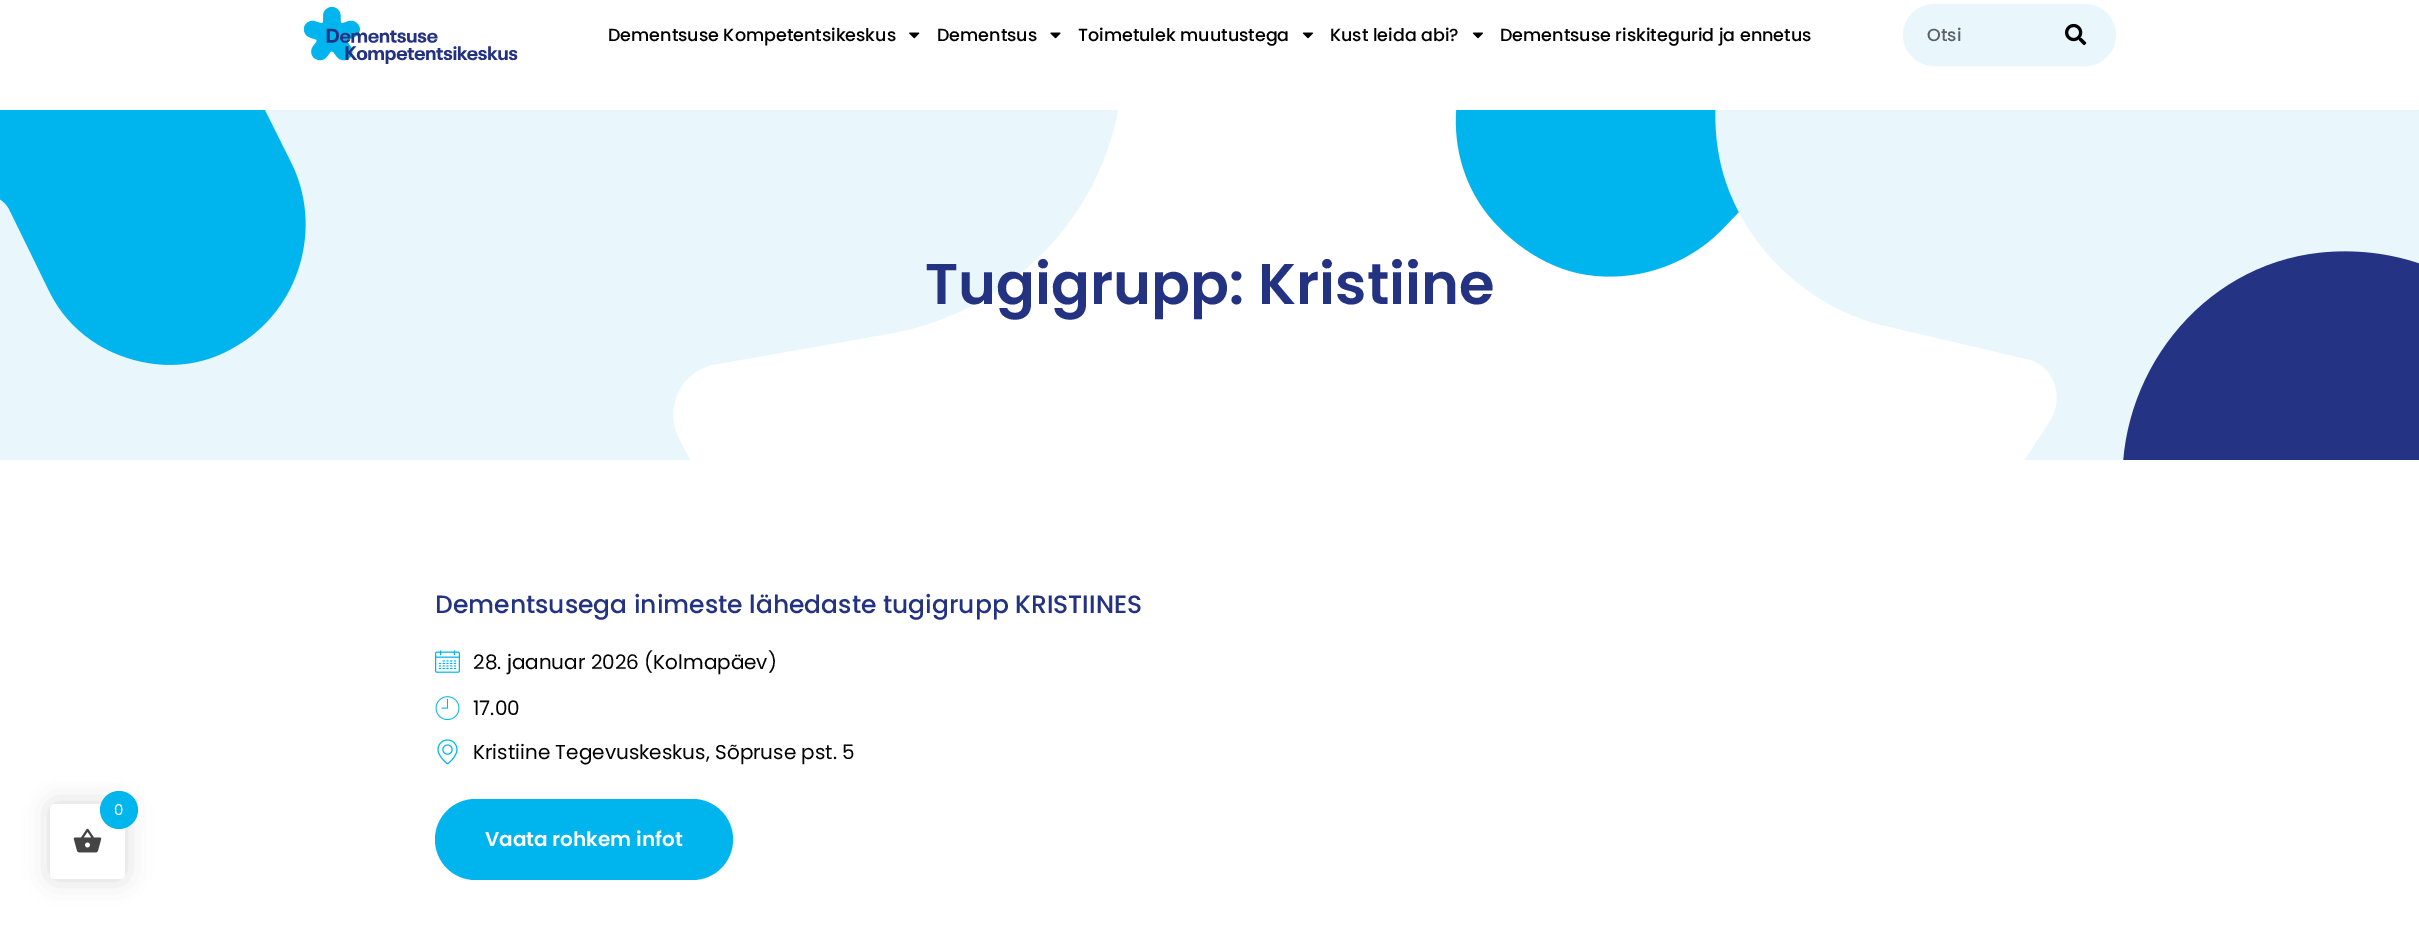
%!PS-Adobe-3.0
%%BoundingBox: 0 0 2419 928
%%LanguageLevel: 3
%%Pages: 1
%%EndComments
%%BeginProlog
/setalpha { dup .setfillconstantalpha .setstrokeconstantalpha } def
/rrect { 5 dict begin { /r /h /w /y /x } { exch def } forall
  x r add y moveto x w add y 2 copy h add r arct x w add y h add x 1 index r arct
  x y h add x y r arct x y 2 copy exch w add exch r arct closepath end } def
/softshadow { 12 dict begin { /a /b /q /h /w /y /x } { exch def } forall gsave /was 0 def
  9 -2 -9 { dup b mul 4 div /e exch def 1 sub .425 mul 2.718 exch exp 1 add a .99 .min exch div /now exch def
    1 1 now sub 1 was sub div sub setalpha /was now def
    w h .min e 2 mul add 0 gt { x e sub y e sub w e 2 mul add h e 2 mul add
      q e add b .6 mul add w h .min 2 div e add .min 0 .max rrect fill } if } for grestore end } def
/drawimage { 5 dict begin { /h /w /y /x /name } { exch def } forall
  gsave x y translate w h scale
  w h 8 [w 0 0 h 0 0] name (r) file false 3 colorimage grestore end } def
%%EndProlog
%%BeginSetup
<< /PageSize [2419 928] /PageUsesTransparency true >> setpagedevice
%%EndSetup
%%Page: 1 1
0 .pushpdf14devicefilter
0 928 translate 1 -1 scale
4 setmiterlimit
1 setgray
0 0 2419 928 rectfill
(images/1.raw) 304 7 214 57 drawimage
(images/2.raw) 909 32 11 7 drawimage
(images/3.raw) 1050 32 11 7 drawimage
(images/4.raw) 1302 32 11 7 drawimage
(images/4.raw) 1472 32 11 7 drawimage
0.914 0.969 0.992 setrgbcolor
1909.5 10.5 200 49 24.5 rrect gsave fill grestore
13 setlinewidth
stroke
(images/5.raw) 2065 23 22 23 drawimage
0 setgray
50 804 75 75 5 12.5 0.15 softshadow
1 setgray
50 804 75 75 5 rrect fill
(images/6.raw) 73 828 29 25 drawimage
0.004 0.71 0.929 setrgbcolor
newpath 119 810 19 0 360 arc closepath fill
(images/7.raw) 0 110 2419 350 drawimage
(images/8.raw) 435 650 25 23 drawimage
(images/9.raw) 435 696 25 25 drawimage
(images/10.raw) 437 739 21 26 drawimage
0 0.71 0.929 setrgbcolor
435 799 298 81 40.5 rrect fill
/Poppins-Medium [17.5 0 0 -17.5 0 0] selectfont
0 setgray
608 41 moveto (Dementsuse Kompetentsikeskus) show
937 41 moveto (Dementsus) show
1078 41 moveto (Toimetulek muutustega) show
1330 41 moveto (Kust leida abi?) show
1500 41 moveto (Dementsuse riskitegurid ja ennetus) show
0.365 0.388 0.396 setrgbcolor
1927 41 moveto (Otsi) show
/Poppins-Regular [15 0 0 -15 0 0] selectfont
1 setgray
114 815 moveto (0) show
/Poppins-SemiBold [57.5 0 0 -57.5 0 0] selectfont
0.141 0.196 0.51 setrgbcolor
925 304 moveto (Tugigrupp: Kristiine) show
/Poppins-Medium [25 0 0 -25 0 0] selectfont
435 613 moveto (Dementsusega inimeste lähedaste tugigrupp KRISTIINES) show
/Poppins-Regular [20 0 0 -20 0 0] selectfont
0 setgray
473 669 moveto (28. jaanuar 2026 \(Kolmapäev\)) show
473 715 moveto (17.00) show
473 759 moveto (Kristiine Tegevuskeskus, Sõpruse pst. 5) show
/Poppins-SemiBold [20 0 0 -20 0 0] selectfont
1 setgray
485 846 moveto (Vaata rohkem infot) show
.poppdf14devicefilter showpage
%%EOF
